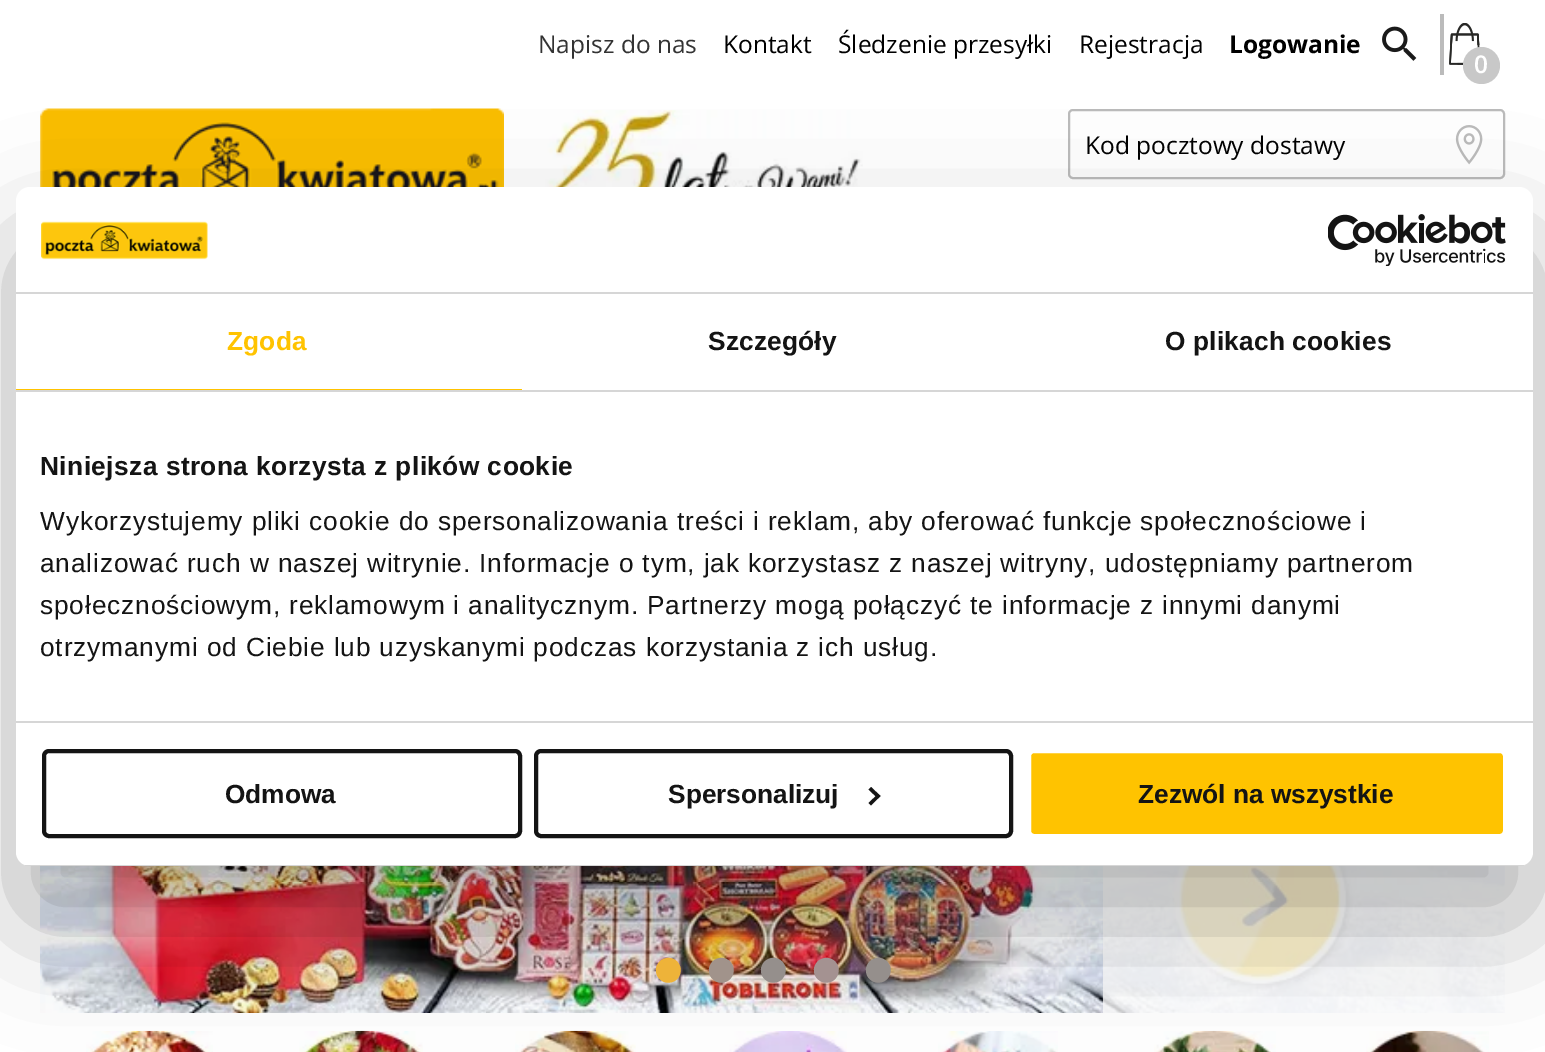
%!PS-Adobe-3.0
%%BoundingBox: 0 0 1545 1052
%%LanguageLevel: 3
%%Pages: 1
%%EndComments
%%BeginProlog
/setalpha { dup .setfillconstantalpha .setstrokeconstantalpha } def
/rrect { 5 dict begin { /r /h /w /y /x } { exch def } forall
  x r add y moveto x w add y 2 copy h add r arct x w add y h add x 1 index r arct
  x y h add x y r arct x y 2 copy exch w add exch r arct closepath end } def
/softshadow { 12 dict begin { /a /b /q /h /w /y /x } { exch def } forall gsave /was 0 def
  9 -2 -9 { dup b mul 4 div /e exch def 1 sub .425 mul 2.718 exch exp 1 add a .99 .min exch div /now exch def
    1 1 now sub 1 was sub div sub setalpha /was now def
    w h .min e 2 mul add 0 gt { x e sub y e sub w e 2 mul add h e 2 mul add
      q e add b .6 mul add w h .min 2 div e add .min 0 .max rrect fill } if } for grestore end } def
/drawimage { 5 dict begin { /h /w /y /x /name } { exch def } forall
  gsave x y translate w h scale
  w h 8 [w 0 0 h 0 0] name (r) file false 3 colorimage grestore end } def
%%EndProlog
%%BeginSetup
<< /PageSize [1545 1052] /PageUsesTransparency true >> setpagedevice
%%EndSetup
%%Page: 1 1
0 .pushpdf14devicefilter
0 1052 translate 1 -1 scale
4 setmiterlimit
1 setgray
0 0 1545 1052 rectfill
0.733 setgray
1440 14 4 61 rectfill
(images/1.raw) 1382 26 35 35 drawimage
(images/2.raw) 1449 23 31 42 drawimage
0.784 setgray
newpath 1481.5 65.5 18.5 0 360 arc closepath fill
(images/3.raw) 40 108 464 79 drawimage
(images/4.raw) 521 110 342 77 drawimage
(images/5.raw) 1455 125 28 40 drawimage
0.733 setgray
2 setlinewidth
1069 110 435 68 4 rrect stroke
(images/6.raw) 40 866 1465 147 drawimage
0.25 setalpha
1 setgray
1504 866 1 146 rectfill
0.8 setalpha
1103 866 402 147 rectfill
1 setalpha
(images/7.raw) 86 1030 127 22 drawimage
(images/8.raw) 299 1030 124 22 drawimage
(images/9.raw) 515 1030 121 22 drawimage
(images/10.raw) 729 1031 118 21 drawimage
(images/11.raw) 938 1031 120 21 drawimage
(images/12.raw) 1154 1030 122 22 drawimage
(images/13.raw) 1366 1030 123 22 drawimage
0 setgray
16 243 1517 679 14 59.5 0.3 softshadow
1 setgray
16 187 1517 679 14 rrect fill
0.839 setgray
16 292 1517 2 rectfill
(images/14.raw) 41 221 167 39 drawimage
(images/15.raw) 1328 214 178 52 drawimage
16 390 1517 2 rectfill
1 0.765 0 setrgbcolor
16 389 506 1 rectfill
0.839 setgray
16 721 1517 2 rectfill
gsave
16 187 1517 679 14 rrect clip newpath
25 865 1499 1 rectfill
grestore
0.078 setgray
4 setlinewidth
44 751 476 85 5 rrect stroke
536 751 475 85 5 rrect stroke
newpath 871 787 moveto 880.5 796 lineto 878 798.5 lineto 868.5 789.5 lineto closepath fill
newpath 878 794 moveto 880.5 796 lineto 871 805.5 lineto 868.5 803 lineto closepath fill
1 0.765 0 setrgbcolor
1029 751 476 85 5 rrect gsave fill grestore
1 setgray
stroke
/OpenSans-Regular [24.5 0 0 -24.5 0 0] selectfont
0.2 setgray
538 53 moveto (Napisz do nas) show
0 setgray
723 53 moveto (Kontakt) show
838 53 moveto (Śledzenie przesyłki) show
1079 53 moveto (Rejestracja) show
/OpenSans-Bold [24.5 0 0 -24.5 0 0] selectfont
1229 53 moveto (Logowanie) show
/OpenSans-SemiBold [24.5 0 0 -24.5 0 0] selectfont
1 setgray
1474 73 moveto (0) show
/OpenSans-Regular [24.5 0 0 -24.5 0 0] selectfont
0 setgray
1085 154 moveto (Kod pocztowy dostawy) show
/LiberationSerif-Regular [105 0 0 -105 0 0] selectfont
0.933 0.702 0.224 setrgbcolor
650 1005 moveto (•) show
0.631 0.576 0.545 setrgbcolor
703 1005 moveto (•) show
0.584 0.561 0.549 setrgbcolor
755 1005 moveto (•) show
0.643 0.573 0.569 setrgbcolor
808 1005 moveto (•) show
0.584 0.561 0.549 setrgbcolor
860 1005 moveto (•) show
/LiberationSans-Bold [26.25 0 0 -26.25 0 0] selectfont
1 0.765 0 setrgbcolor
227 350 moveto 0.2 0 (Zgoda) ashow
0.078 setgray
708 350 moveto 0.2 0 (Szczegóły) ashow
1165 350 moveto 0.2 0 (O plikach cookies) ashow
40 475 moveto 0.45 0 (Niniejsza strona korzysta z plików cookie) ashow
/LiberationSans-Regular [26.25 0 0 -26.25 0 0] selectfont
40 530 moveto 0.88 0 (Wykorzystujemy pliki cookie do spersonalizowania treści i reklam, aby oferować funkcje społecznościowe i) ashow
40 572 moveto 0.88 0 (analizować ruch w naszej witrynie. Informacje o tym, jak korzystasz z naszej witryny, udostępniamy partnerom) ashow
40 614 moveto 0.88 0 (społecznościowym, reklamowym i analitycznym. Partnerzy mogą połączyć te informacje z innymi danymi) ashow
40 656 moveto 0.88 0 (otrzymanymi od Ciebie lub uzyskanymi podczas korzystania z ich usług.) ashow
/LiberationSans-Bold [26.25 0 0 -26.25 0 0] selectfont
225 803 moveto (Odmowa) show
668 803 moveto (Spersonalizuj) show
1138 803 moveto (Zezwól na wszystkie) show
.poppdf14devicefilter showpage
%%EOF
